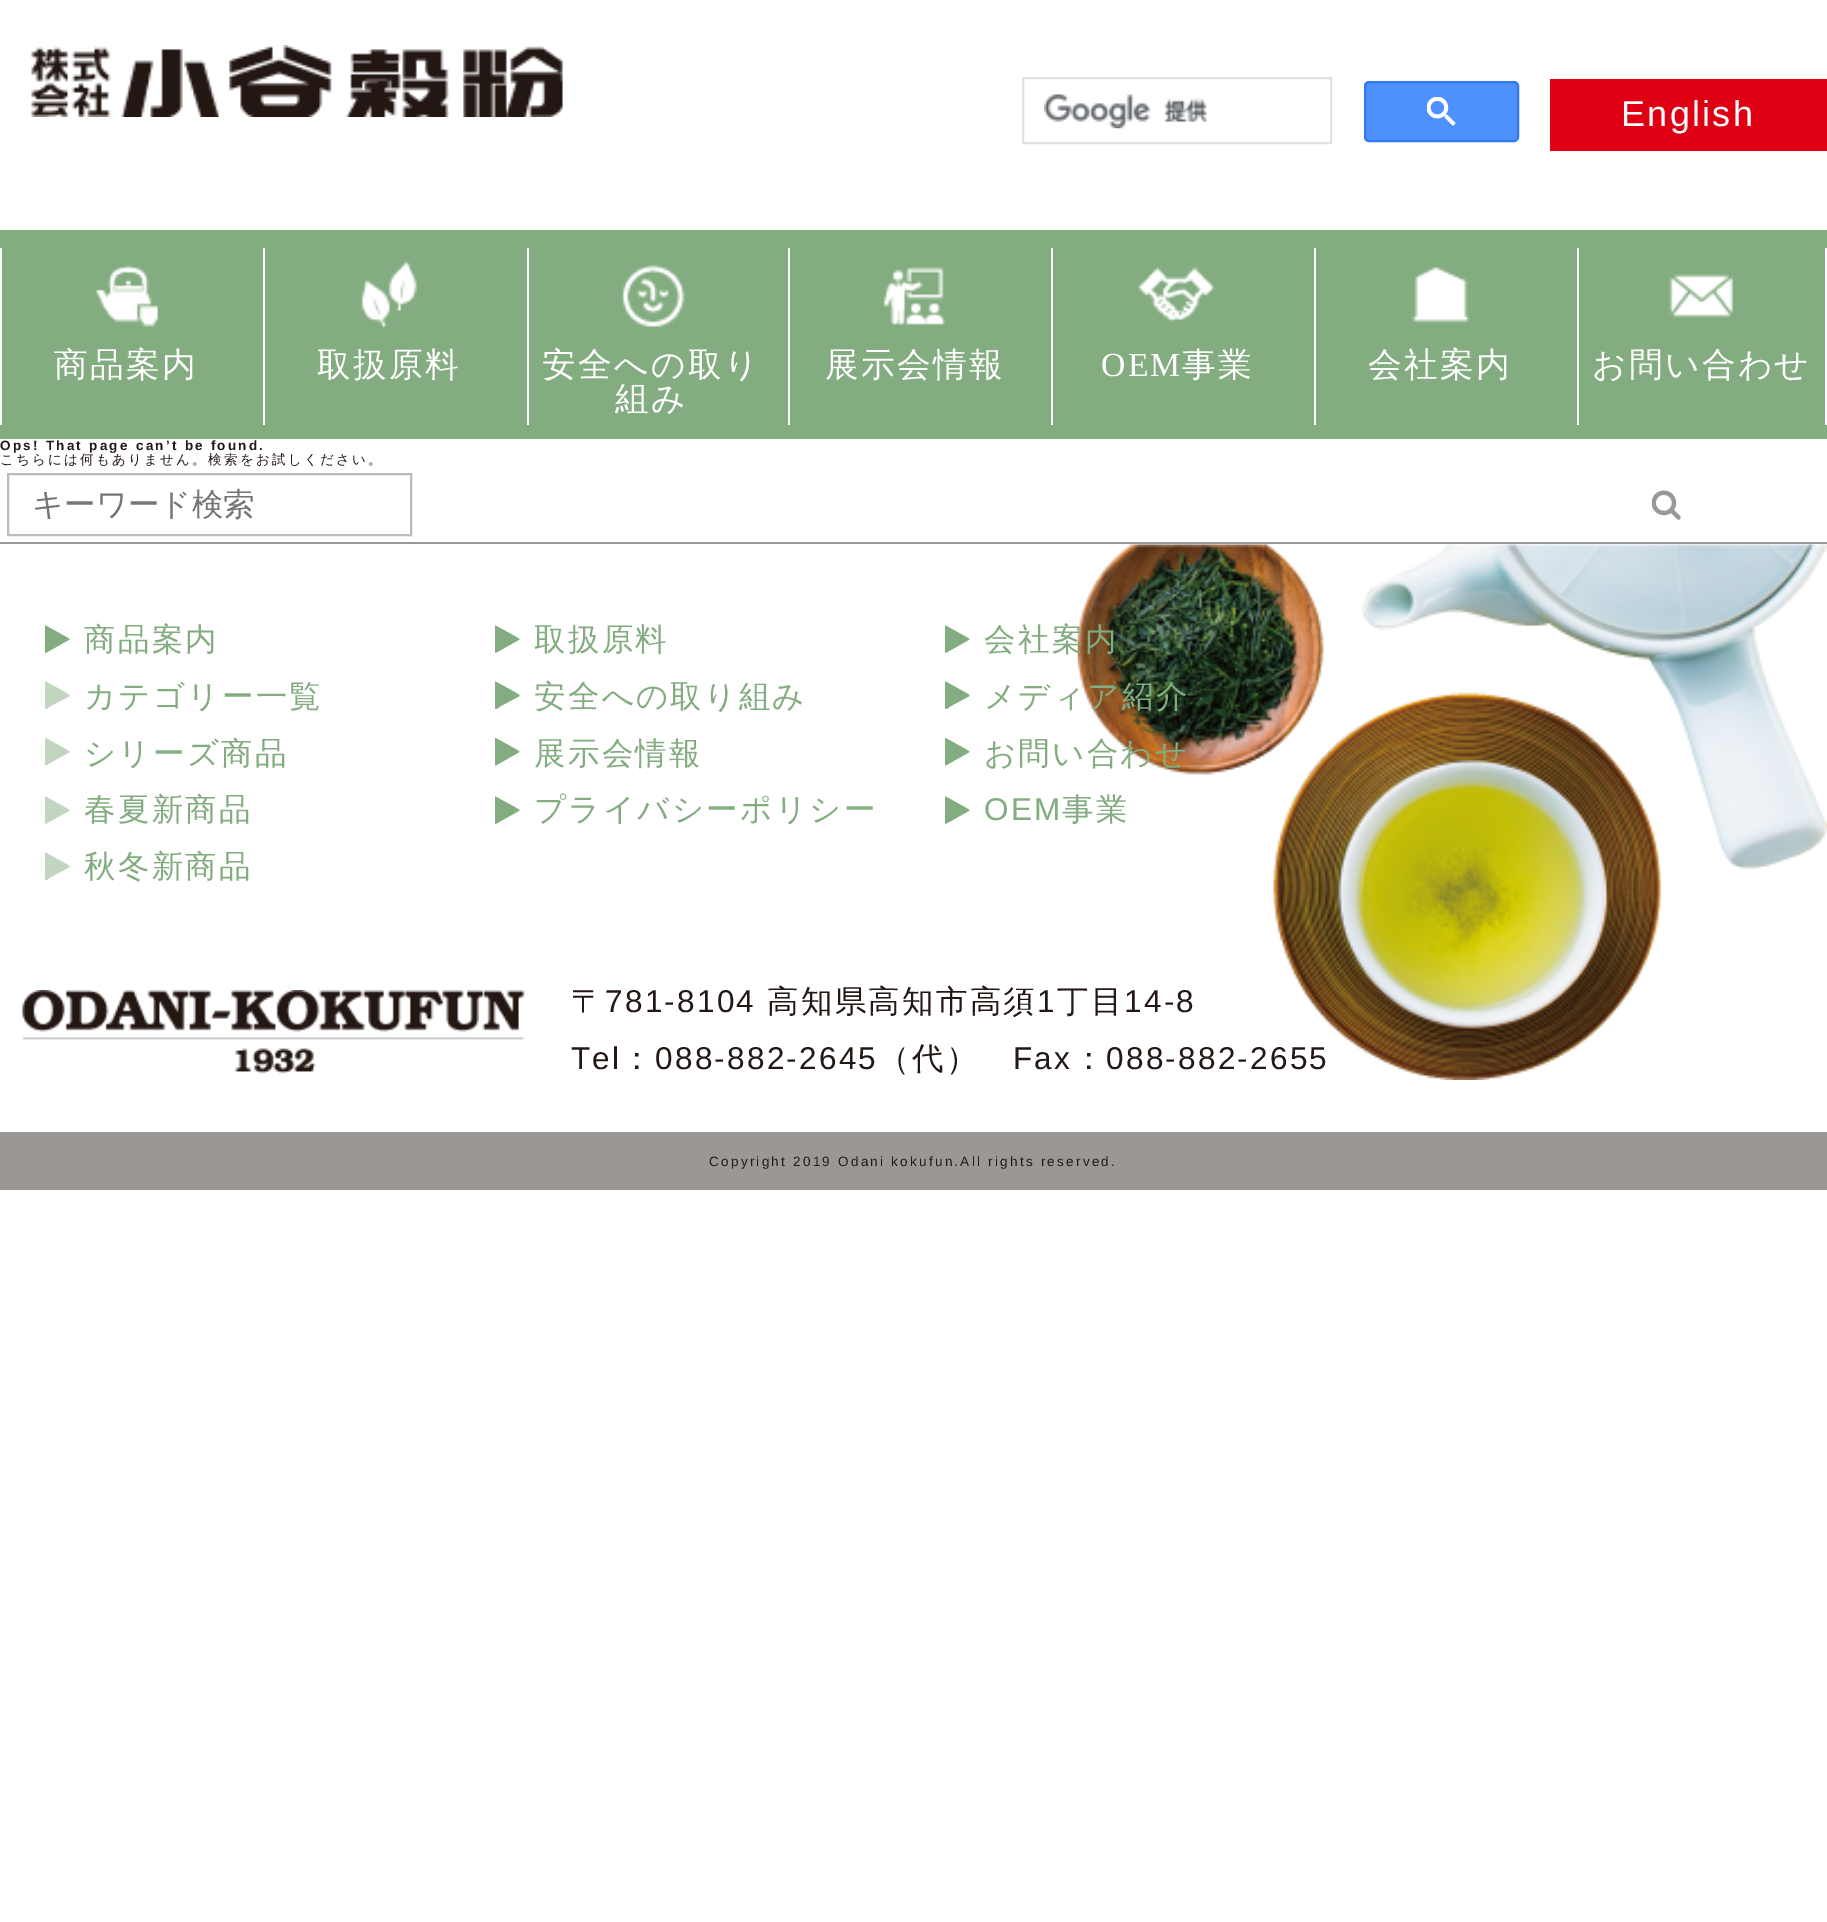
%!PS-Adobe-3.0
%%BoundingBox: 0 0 1827 1922
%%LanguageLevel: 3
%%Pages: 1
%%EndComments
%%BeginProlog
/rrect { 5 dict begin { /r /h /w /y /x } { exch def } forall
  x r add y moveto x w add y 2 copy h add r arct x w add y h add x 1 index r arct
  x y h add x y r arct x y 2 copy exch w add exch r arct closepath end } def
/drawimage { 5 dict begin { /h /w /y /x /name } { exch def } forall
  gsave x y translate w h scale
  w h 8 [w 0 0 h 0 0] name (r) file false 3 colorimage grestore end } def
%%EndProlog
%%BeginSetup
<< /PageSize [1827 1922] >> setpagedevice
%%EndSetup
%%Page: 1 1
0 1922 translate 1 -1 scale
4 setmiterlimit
1 setgray
0 0 1827 1922 rectfill
(images/1.raw) 31 45 532 72 drawimage
0.875 0.882 0.898 setrgbcolor
2 setlinewidth
1023 78 308 65 rectstroke
(images/2.raw) 1044 94 164 35 drawimage
0.302 0.565 0.996 setrgbcolor
1365 82 153 59 4 rrect gsave fill grestore
0.188 0.475 0.929 setrgbcolor
stroke
(images/3.raw) 1427 97 29 29 drawimage
0.871 0 0.071 setrgbcolor
1550 79 277 72 rectfill
0.514 0.675 0.502 setrgbcolor
0 230 1827 209 rectfill
1 setgray
0 248 2 177 rectfill
(images/4.raw) 96 265 63 62 drawimage
263 248 2 177 rectfill
(images/5.raw) 361 260 56 68 drawimage
527 248 2 177 rectfill
(images/6.raw) 622 265 63 62 drawimage
788 248 2 177 rectfill
(images/7.raw) 883 267 63 58 drawimage
1051 248 2 177 rectfill
(images/8.raw) 1138 267 77 55 drawimage
1314 248 2 177 rectfill
(images/9.raw) 1412 267 58 56 drawimage
1825 248 2 177 rectfill
1577 248 2 177 rectfill
(images/10.raw) 1669 274 65 44 drawimage
0.733 setgray
8 474 403 61 rectstroke
(images/11.raw) 1652 490 29 30 drawimage
0.604 0.592 0.584 setrgbcolor
0 542 1827 2 rectfill
(images/12.raw) 1077 544 750 536 drawimage
0.514 0.675 0.502 setrgbcolor
newpath 69.5 639.5 moveto 50 650.5 lineto 49.5 650.5 46 653.5 45 652.5 curveto 45 626 lineto 45.5 625.5 lineto 65.5 636.5 lineto 69.5 639 lineto closepath fill
0.757 0.835 0.749 setrgbcolor
newpath 69.5 696 moveto 50 706.5 lineto 49.5 707 46 710 45 708.5 curveto 45 682 lineto 45.5 681.5 lineto 65.5 692.5 lineto 69.5 695 lineto closepath fill
newpath 69.5 752 moveto 50 763 lineto 49.5 763 46 766 45 765 curveto 45 738.5 lineto 45.5 738 lineto 65.5 749 lineto 69.5 751.5 lineto closepath fill
newpath 69.5 810.5 moveto 50 821.5 lineto 49.5 821.5 46 824.5 45 823.5 curveto 45 797 lineto 45.5 796.5 lineto 65.5 807.5 lineto 69.5 810 lineto closepath fill
newpath 69.5 867 moveto 50 877.5 lineto 49.5 878 46 881 45 879.5 curveto 45 853 lineto 45.5 852.5 lineto 65.5 863.5 lineto 69.5 866 lineto closepath fill
0.514 0.675 0.502 setrgbcolor
newpath 519.5 639.5 moveto 500 650.5 lineto 499.5 650.5 496 653.5 495 652.5 curveto 495 626 lineto 495.5 625.5 lineto 515.5 636.5 lineto 519.5 639 lineto closepath fill
newpath 969.5 639.5 moveto 950 650.5 lineto 949.5 650.5 946 653.5 945 652.5 curveto 945 626 lineto 945.5 625.5 lineto 965.5 636.5 lineto 969.5 639 lineto closepath fill
newpath 519.5 696 moveto 500 706.5 lineto 499.5 707 496 710 495 708.5 curveto 495 682 lineto 495.5 681.5 lineto 515.5 692.5 lineto 519.5 695 lineto closepath fill
newpath 969.5 696 moveto 950 706.5 lineto 949.5 707 946 710 945 708.5 curveto 945 682 lineto 945.5 681.5 lineto 965.5 692.5 lineto 969.5 695 lineto closepath fill
newpath 519.5 752 moveto 500 763 lineto 499.5 763 496 766 495 765 curveto 495 738.5 lineto 495.5 738 lineto 515.5 749 lineto 519.5 751.5 lineto closepath fill
newpath 969.5 752 moveto 950 763 lineto 949.5 763 946 766 945 765 curveto 945 738.5 lineto 945.5 738 lineto 965.5 749 lineto 969.5 751.5 lineto closepath fill
newpath 519.5 810.5 moveto 500 821.5 lineto 499.5 821.5 496 824.5 495 823.5 curveto 495 797 lineto 495.5 796.5 lineto 515.5 807.5 lineto 519.5 810 lineto closepath fill
newpath 969.5 810.5 moveto 950 821.5 lineto 949.5 821.5 946 824.5 945 823.5 curveto 945 797 lineto 945.5 796.5 lineto 965.5 807.5 lineto 969.5 810 lineto closepath fill
(images/13.raw) 22 990 503 84 drawimage
0.604 0.592 0.584 setrgbcolor
0 1132 1827 58 rectfill
/LiberationSans-Regular [36 0 0 -36 0 0] selectfont
1 setgray
1621 126 moveto 2.25 0 (English) ashow
/WenQuanYiZenHei-Medium [33.75 0 0 -33.75 0 0] selectfont
54 376 moveto 2.25 0 (商品案内) ashow
317 376 moveto 2.25 0 (取扱原料) ashow
542 376 moveto 2.25 0 (安全への取り) ashow
615 410 moveto 2.25 0 (組み) ashow
825 376 moveto 2.25 0 (展示会情報) ashow
/LiberationSerif-Regular [33.75 0 0 -33.75 0 0] selectfont
1101 376 moveto 2.25 0 (OEM) ashow
/WenQuanYiZenHei-Medium [33.75 0 0 -33.75 0 0] selectfont
1182 376 moveto 2.25 0 (事業) ashow
1368 376 moveto 2.25 0 (会社案内) ashow
1592 376 moveto 2.25 0 (お問い合わせ) ashow
/LiberationSans-Bold [13.5 0 0 -13.5 0 0] selectfont
0.137 0.094 0.082 setrgbcolor
0 450 moveto 2.25 0 (Ops! That page can’t be found.) ashow
/WenQuanYiZenHei-Medium [13.5 0 0 -13.5 0 0] selectfont
0 464 moveto 2.25 0 (こちらには何もありません。検索をお試しください。) ashow
/WenQuanYiZenHei-Medium [31.5 0 0 -31.5 0 0] selectfont
0.459 setgray
32 515 moveto (キーワード検索) show
0.514 0.675 0.502 setrgbcolor
84 650 moveto 2.25 0 (商品案内) ashow
84 707 moveto 2.25 0 (カテゴリー一覧) ashow
84 764 moveto 2.25 0 (シリーズ商品) ashow
84 820 moveto 2.25 0 (春夏新商品) ashow
84 877 moveto 2.25 0 (秋冬新商品) ashow
534 650 moveto 2.25 0 (取扱原料) ashow
984 650 moveto 2.25 0 (会社案内) ashow
534 707 moveto 2.25 0 (安全への取り組み) ashow
984 707 moveto 2.25 0 (メディア紹介) ashow
534 764 moveto 2.25 0 (展示会情報) ashow
984 764 moveto 2.25 0 (お問い合わせ) ashow
534 820 moveto 2.25 0 (プライバシーポリシー) ashow
/LiberationSans-Regular [31.5 0 0 -31.5 0 0] selectfont
984 820 moveto 2.25 0 (OEM) ashow
/WenQuanYiZenHei-Medium [31.5 0 0 -31.5 0 0] selectfont
1062 820 moveto 2.25 0 (事業) ashow
0.137 0.094 0.082 setrgbcolor
571 1012 moveto 2.25 0 (〒) ashow
/LiberationSans-Regular [31.5 0 0 -31.5 0 0] selectfont
605 1012 moveto 2.25 0 (781-8104) ashow
/WenQuanYiZenHei-Medium [31.5 0 0 -31.5 0 0] selectfont
767 1012 moveto 2.25 0 (高知県高知市高須) ashow
/LiberationSans-Regular [31.5 0 0 -31.5 0 0] selectfont
1037 1012 moveto 2.25 0 (1) ashow
/WenQuanYiZenHei-Medium [31.5 0 0 -31.5 0 0] selectfont
1057 1012 moveto 2.25 0 (丁目) ashow
/LiberationSans-Regular [31.5 0 0 -31.5 0 0] selectfont
1124 1012 moveto 2.25 0 (14-8) ashow
571 1069 moveto 2.25 0 (Tel) ashow
/WenQuanYiZenHei-Medium [31.5 0 0 -31.5 0 0] selectfont
621 1069 moveto 2.25 0 (：) ashow
/LiberationSans-Regular [31.5 0 0 -31.5 0 0] selectfont
655 1069 moveto 2.25 0 (088-882-2645) ashow
/WenQuanYiZenHei-Medium [31.5 0 0 -31.5 0 0] selectfont
878 1069 moveto 2.25 0 (（代）) ashow
/LiberationSans-Regular [31.5 0 0 -31.5 0 0] selectfont
1013 1069 moveto 2.25 0 (Fax) ashow
/WenQuanYiZenHei-Medium [31.5 0 0 -31.5 0 0] selectfont
1073 1069 moveto 2.25 0 (：) ashow
/LiberationSans-Regular [31.5 0 0 -31.5 0 0] selectfont
1106 1069 moveto 2.25 0 (088-882-2655) ashow
/LiberationSans-Regular [13.5 0 0 -13.5 0 0] selectfont
709 1166 moveto 2.25 0 (Copyright 2019 Odani kokufun.All rights reserved.) ashow
showpage
%%EOF
